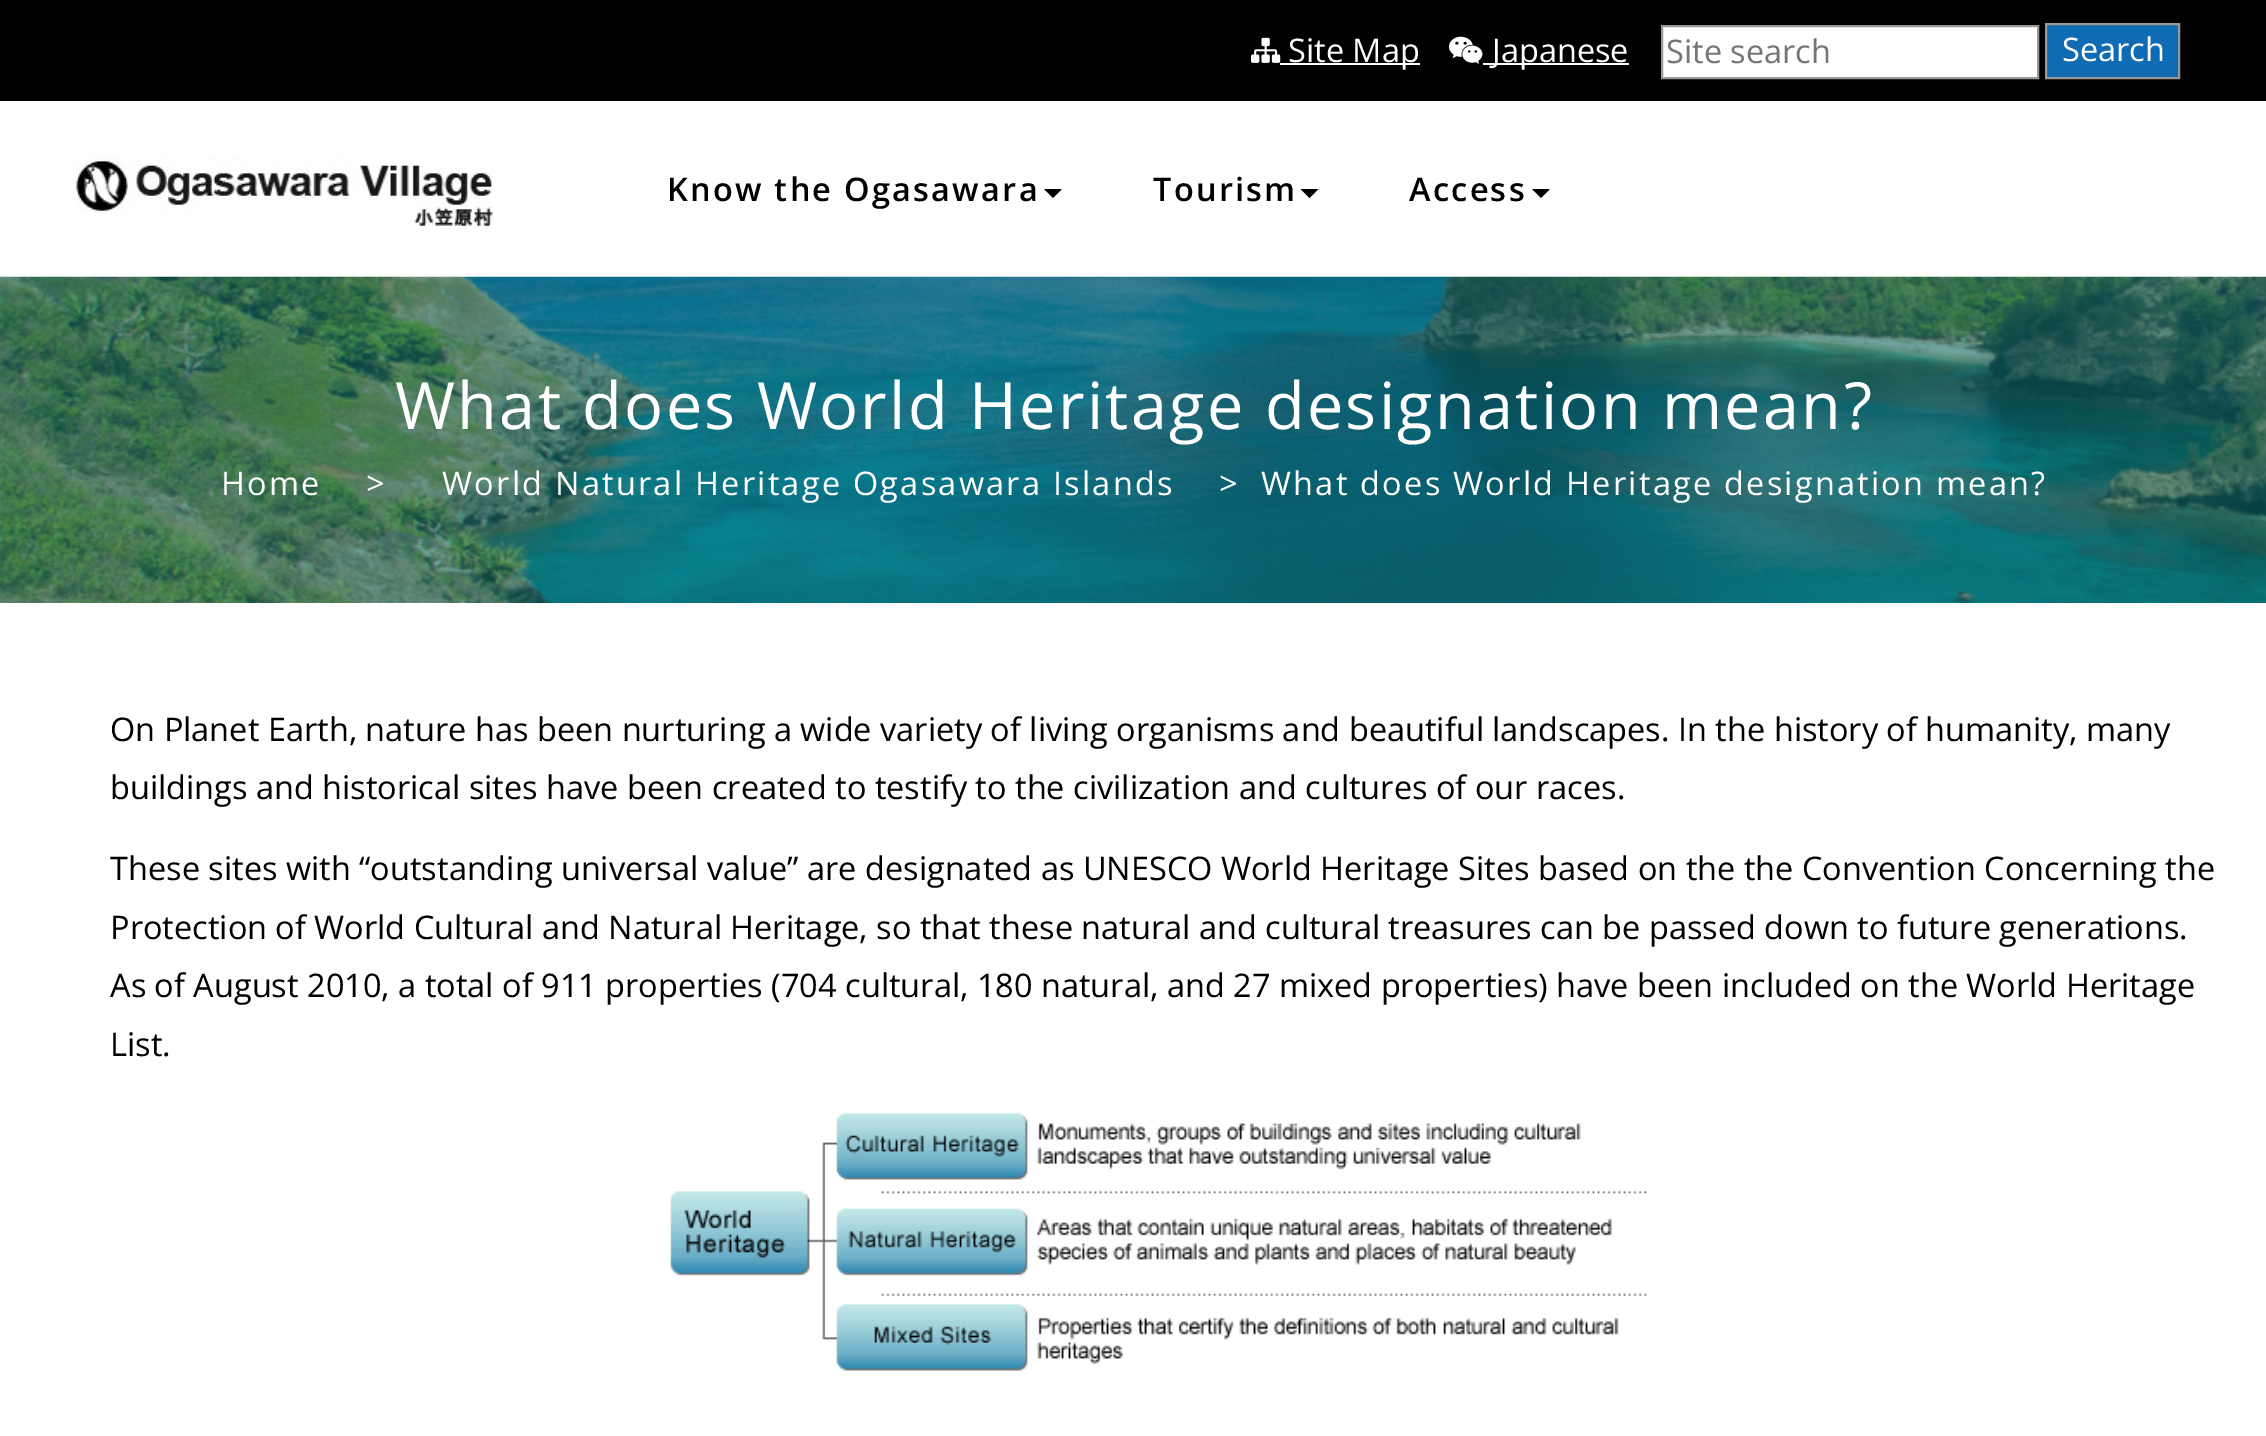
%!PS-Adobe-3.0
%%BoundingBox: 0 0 2266 1436
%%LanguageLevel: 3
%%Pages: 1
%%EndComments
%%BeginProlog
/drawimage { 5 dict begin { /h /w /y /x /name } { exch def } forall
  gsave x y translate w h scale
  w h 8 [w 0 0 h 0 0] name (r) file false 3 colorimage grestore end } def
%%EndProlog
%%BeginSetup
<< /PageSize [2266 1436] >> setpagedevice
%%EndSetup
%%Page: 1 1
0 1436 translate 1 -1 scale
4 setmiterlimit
1 setgray
0 0 2266 1436 rectfill
0 setgray
0 0 2266 101 rectfill
(images/1.raw) 1251 37 30 26 drawimage
1 setgray
1280 63 140 2 rectfill
(images/2.raw) 1449 36 34 28 drawimage
1483 63 146 2 rectfill
newpath 1662 26 moveto 2038 26 lineto 2038 78 lineto 1662 78 lineto closepath gsave fill grestore
0.6 setgray
2 setlinewidth
stroke
0.055 0.42 0.706 setrgbcolor
newpath 2046 24 moveto 2179 24 lineto 2179 78 lineto 2046 78 lineto closepath gsave fill grestore
0.6 setgray
stroke
(images/3.raw) 76 157 418 69 drawimage
0 setgray
newpath 1044 189 moveto 1062 189 lineto 1053 198 lineto closepath fill
newpath 1300.5 189 moveto 1318.5 189 lineto 1309.5 198 lineto closepath fill
newpath 1532 189 moveto 1550 189 lineto 1541 198 lineto closepath fill
(images/4.raw) 0 276 2266 327 drawimage
(images/5.raw) 670 1112 977 259 drawimage
/OpenSans-Regular [32.5 0 0 -32.5 0 0] selectfont
1 setgray
1288 62 moveto (Site Map) show
1492 62 moveto (Japanese) show
0.459 setgray
1666 63 moveto (Site search) show
1 setgray
2062 61 moveto (Search) show
/OpenSans-SemiBold [32.5 0 0 -32.5 0 0] selectfont
0 setgray
667 201 moveto 2.25 0 (Know the Ogasawara) ashow
1153 201 moveto 2.25 0 (Tourism) ashow
1409 201 moveto 2.25 0 (Access) ashow
/OpenSans-Regular [65 0 0 -65 0 0] selectfont
1 setgray
395 429 moveto 2.25 0 (What does World Heritage designation mean?) ashow
/OpenSans-Regular [32.5 0 0 -32.5 0 0] selectfont
221 495 moveto 2.25 0 (Home) ashow
366 495 moveto 2.25 0 (>) ashow
442 495 moveto 2.25 0 (World Natural Heritage Ogasawara Islands) ashow
1219 495 moveto 2.25 0 (>) ashow
1261 495 moveto 2.25 0 (What does World Heritage designation mean?) ashow
0 setgray
110 741 moveto (On Planet Earth, nature has been nurturing a wide variety of living organisms and beautiful landscapes. In the history of humanity, many) show
110 799 moveto (buildings and historical sites have been created to testify to the civilization and cultures of our races.) show
110 880 moveto (These sites with “outstanding universal value” are designated as UNESCO World Heritage Sites based on the the Convention Concerning the) show
110 939 moveto (Protection of World Cultural and Natural Heritage, so that these natural and cultural treasures can be passed down to future generations.) show
110 997 moveto (As of August 2010, a total of 911 properties \(704 cultural, 180 natural, and 27 mixed properties\) have been included on the World Heritage) show
110 1056 moveto (List.) show
showpage
%%EOF
